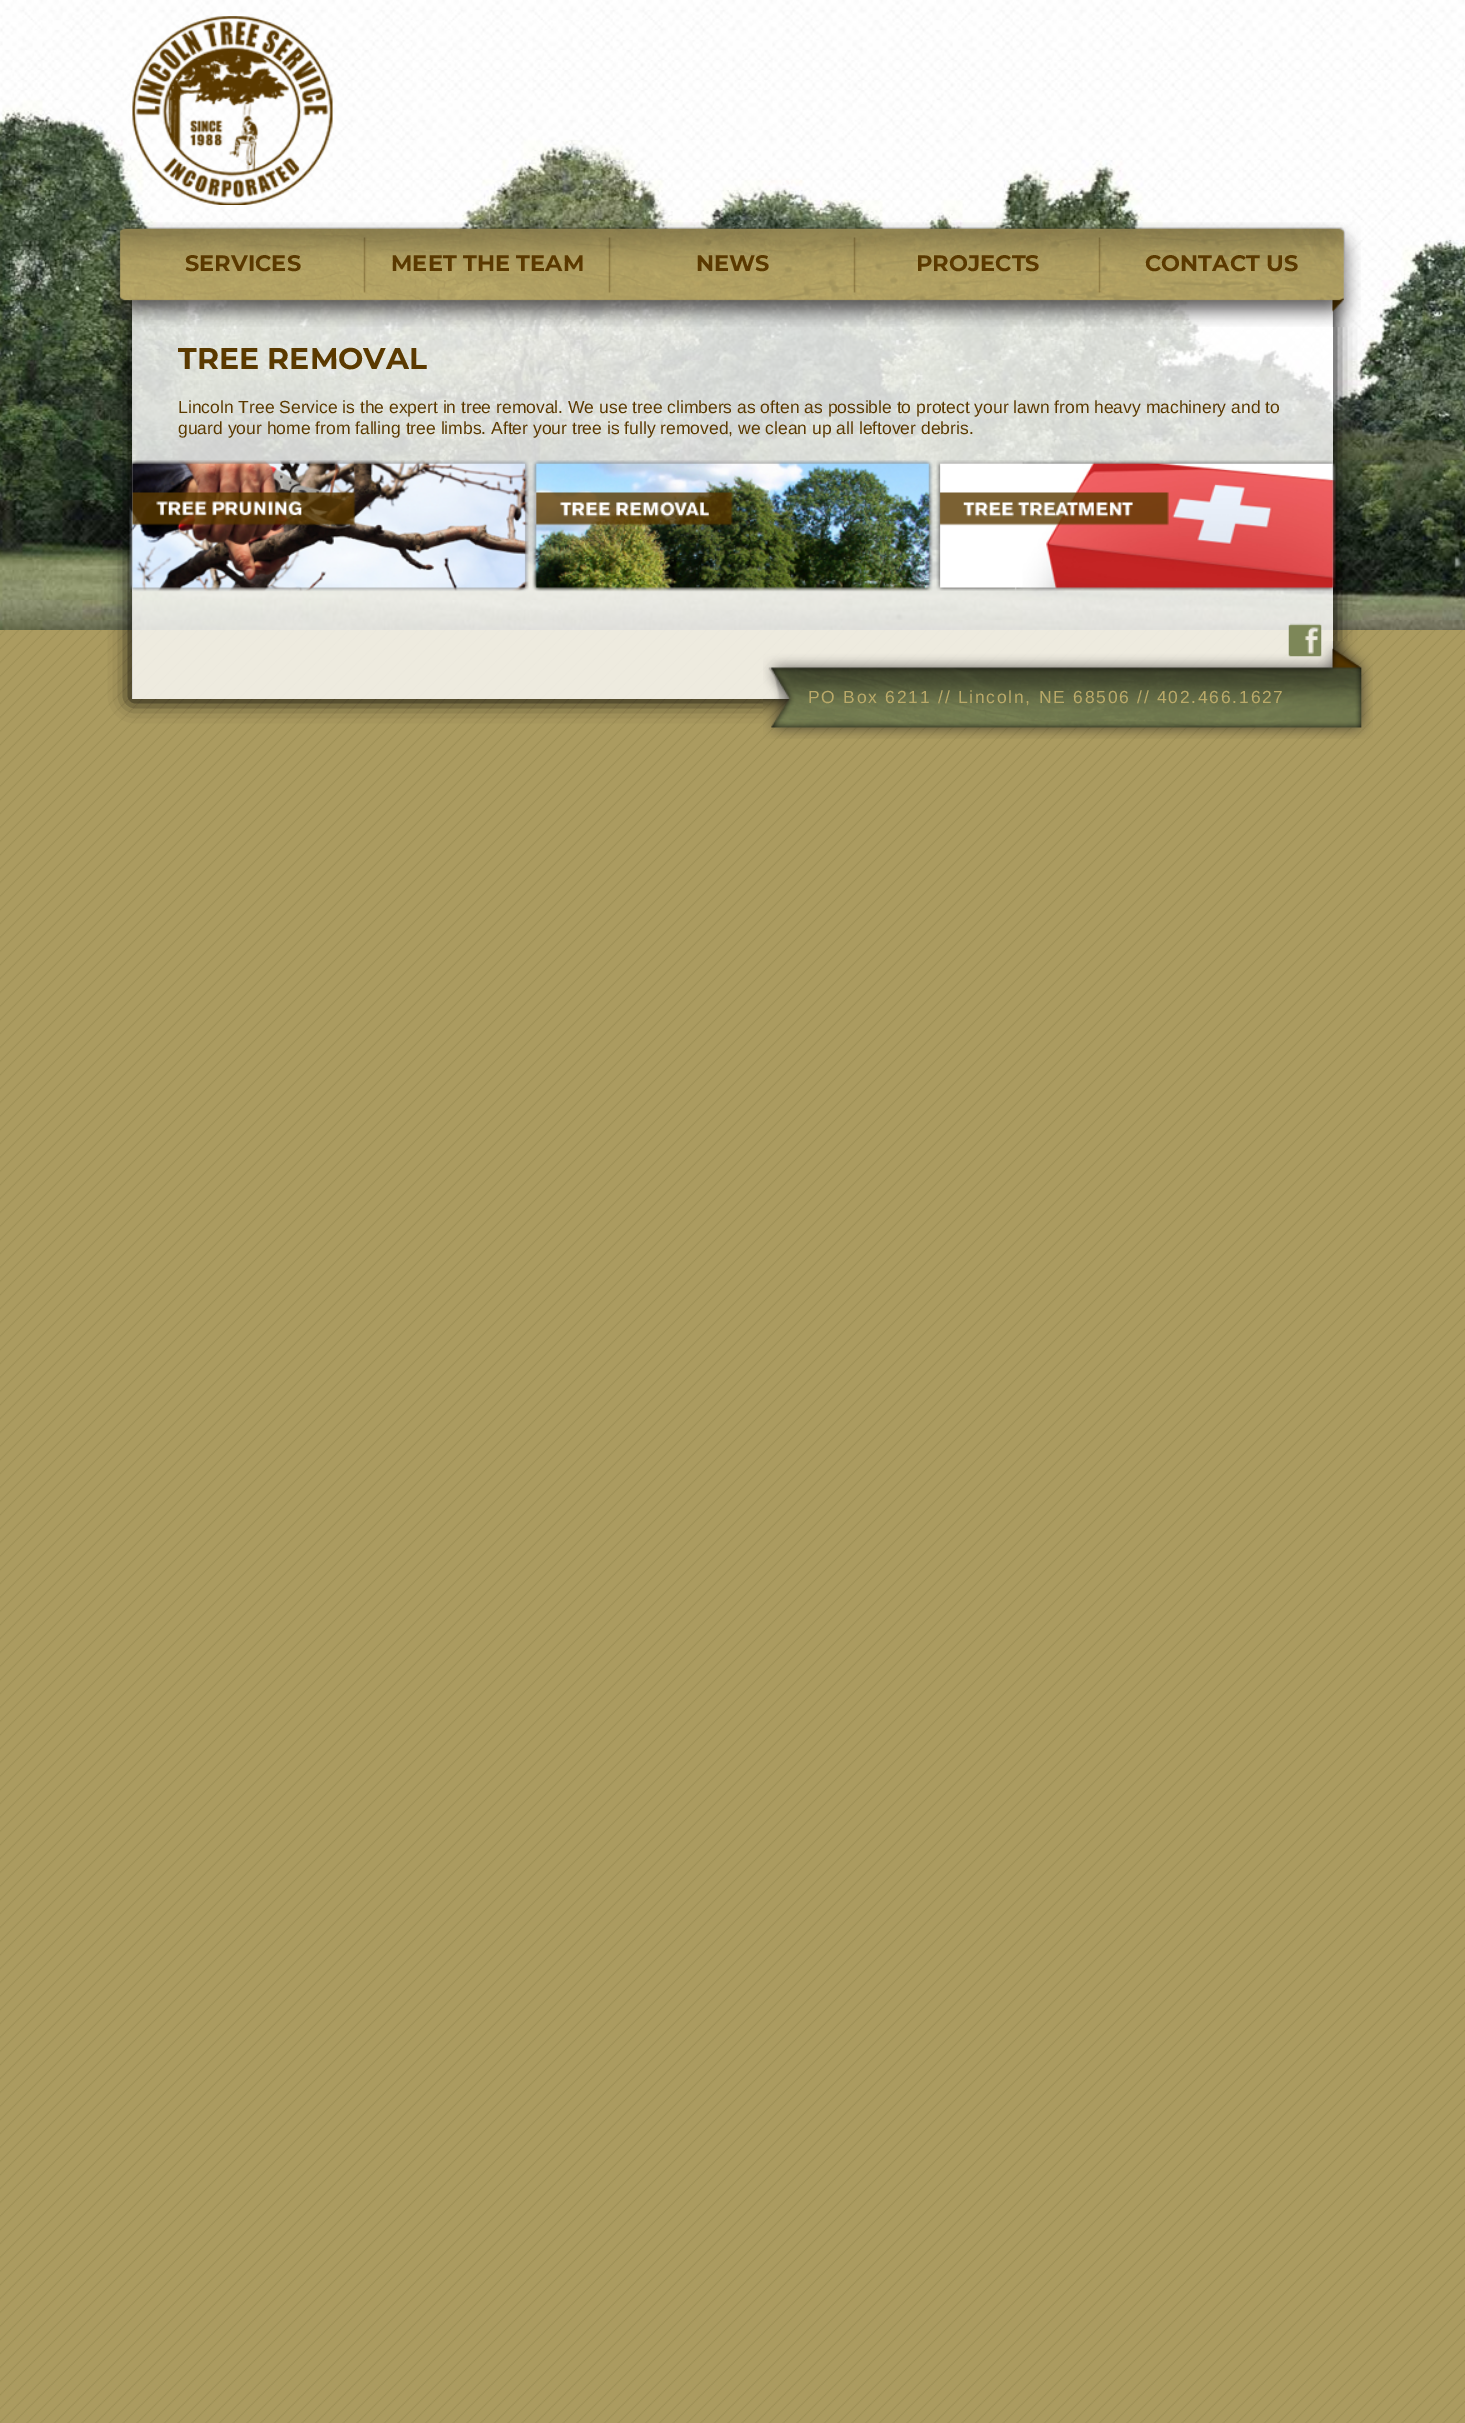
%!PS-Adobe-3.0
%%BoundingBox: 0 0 1465 2423
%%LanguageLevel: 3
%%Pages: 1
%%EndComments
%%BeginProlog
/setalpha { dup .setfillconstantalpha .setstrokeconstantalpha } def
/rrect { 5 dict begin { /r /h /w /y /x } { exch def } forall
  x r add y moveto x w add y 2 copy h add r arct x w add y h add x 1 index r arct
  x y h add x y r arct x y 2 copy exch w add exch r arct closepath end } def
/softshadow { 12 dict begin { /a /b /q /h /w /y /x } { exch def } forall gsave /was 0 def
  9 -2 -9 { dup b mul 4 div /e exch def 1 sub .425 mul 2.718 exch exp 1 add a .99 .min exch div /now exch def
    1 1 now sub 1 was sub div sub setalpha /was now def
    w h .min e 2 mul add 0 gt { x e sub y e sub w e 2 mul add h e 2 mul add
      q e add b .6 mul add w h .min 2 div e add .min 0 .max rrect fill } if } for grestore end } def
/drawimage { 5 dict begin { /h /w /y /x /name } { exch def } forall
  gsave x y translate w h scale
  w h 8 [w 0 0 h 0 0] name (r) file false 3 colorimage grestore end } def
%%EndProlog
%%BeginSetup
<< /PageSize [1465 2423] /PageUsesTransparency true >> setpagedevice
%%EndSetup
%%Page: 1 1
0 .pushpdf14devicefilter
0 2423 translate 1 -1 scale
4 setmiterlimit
1 setgray
0 0 1465 2423 rectfill
(images/1.raw) 0 630 1465 1793 drawimage
(images/2.raw) 0 0 1465 630 drawimage
(images/3.raw) 132 16 201 189 drawimage
gsave
newpath 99 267 moveto 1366 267 lineto 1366 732 lineto 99 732 lineto closepath 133 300 moveto 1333 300 lineto 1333 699 lineto 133 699 lineto closepath eoclip newpath
0 setgray
130 298 1205 403 0 10 1 softshadow
grestore
0.8 setalpha
132 300 1201 399 rectfill
1 setalpha
(images/4.raw) 104 222 1257 105 drawimage
(images/5.raw) 129 460 400 132 drawimage
(images/6.raw) 532 460 401 132 drawimage
(images/7.raw) 936 460 400 131 drawimage
(images/9.raw) 763 641 610 98 drawimage
(images/8.raw) 1288 623 34 34 drawimage
/Montserrat-Thin [22.5 0 0 -22.5 0 0] selectfont
0.353 0.224 0 setrgbcolor
185 271 moveto (SERVICES) show
391 271 moveto (MEET THE TEAM) show
696 271 moveto (NEWS) show
916 271 moveto (PROJECTS) show
1145 271 moveto (CONTACT US) show
/Montserrat-Thin [30 0 0 -30 0 0] selectfont
178 369 moveto (TREE REMOVAL) show
/LiberationSans-Regular [17.5 0 0 -17.5 0 0] selectfont
178 413 moveto (Lincoln Tree Service is the expert in tree removal. We use tree climbers as often as possible to protect your lawn from heavy machinery and to) show
178 434 moveto (guard your home from falling tree limbs. After your tree is fully removed, we clean up all leftover debris.) show
0.733 0.667 0.412 setrgbcolor
808 703 moveto 1.75 0 (PO Box 6211 // Lincoln, NE 68506 // 402.466.1627) ashow
.poppdf14devicefilter showpage
%%EOF
